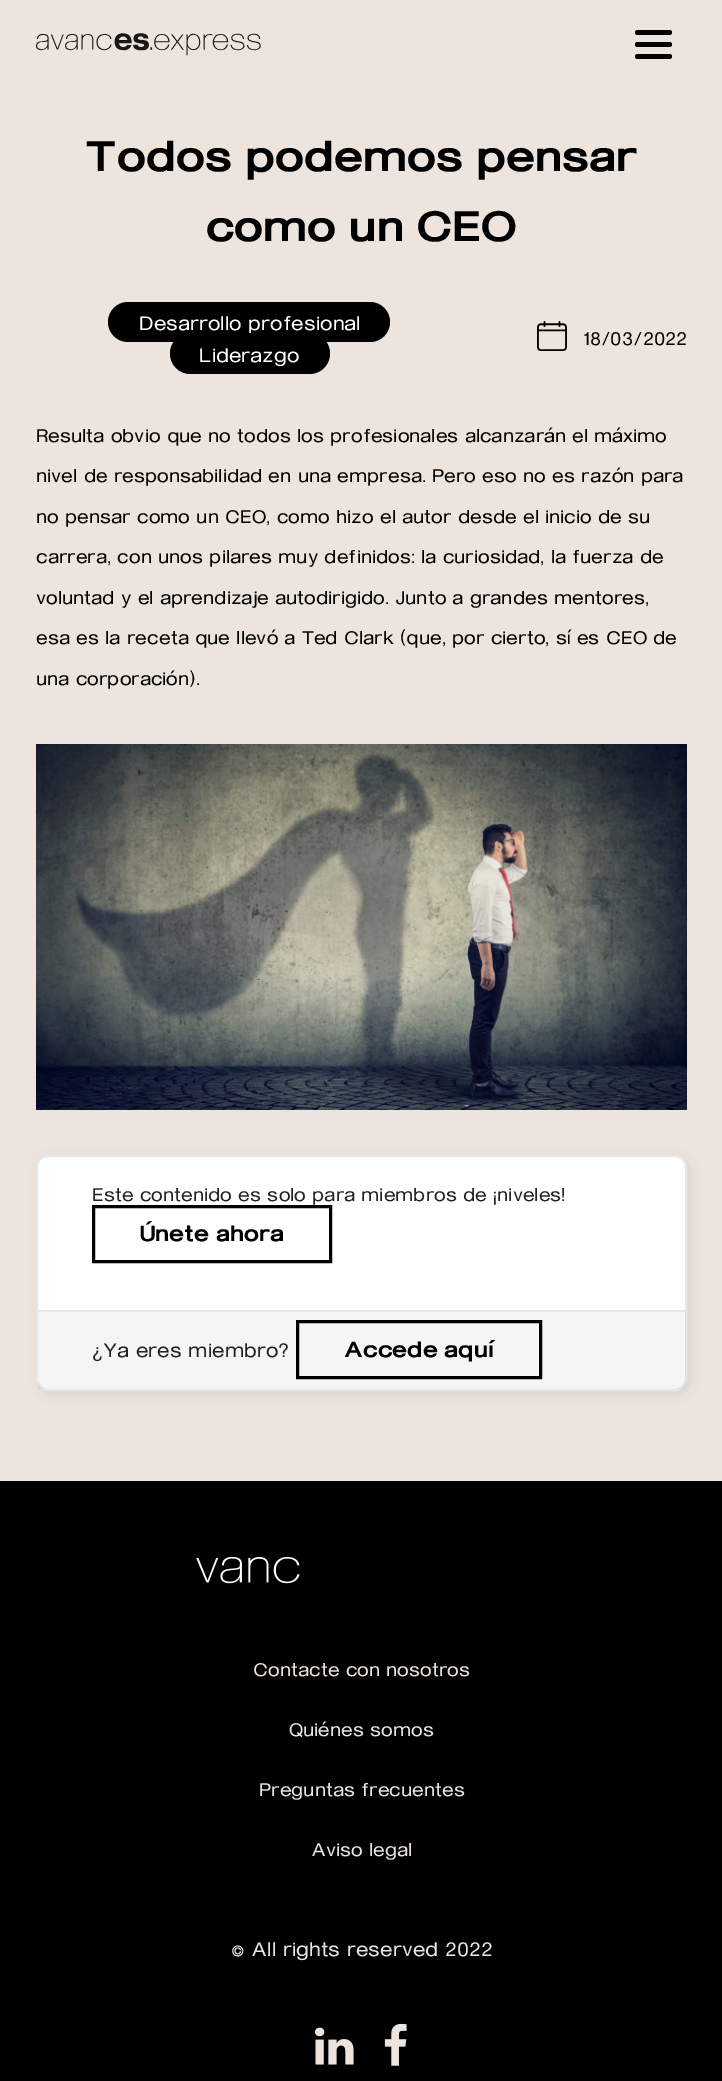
%!PS-Adobe-3.0
%%BoundingBox: 0 0 722 2081
%%LanguageLevel: 3
%%Pages: 1
%%EndComments
%%BeginProlog
/setalpha { dup .setfillconstantalpha .setstrokeconstantalpha } def
/rrect { 5 dict begin { /r /h /w /y /x } { exch def } forall
  x r add y moveto x w add y 2 copy h add r arct x w add y h add x 1 index r arct
  x y h add x y r arct x y 2 copy exch w add exch r arct closepath end } def
/softshadow { 12 dict begin { /a /b /q /h /w /y /x } { exch def } forall gsave /was 0 def
  9 -2 -9 { dup b mul 4 div /e exch def 1 sub .425 mul 2.718 exch exp 1 add a .99 .min exch div /now exch def
    1 1 now sub 1 was sub div sub setalpha /was now def
    w h .min e 2 mul add 0 gt { x e sub y e sub w e 2 mul add h e 2 mul add
      q e add b .6 mul add w h .min 2 div e add .min 0 .max rrect fill } if } for grestore end } def
/drawimage { 5 dict begin { /h /w /y /x /name } { exch def } forall
  gsave x y translate w h scale
  w h 8 [w 0 0 h 0 0] name (r) file false 3 colorimage grestore end } def
%%EndProlog
%%BeginSetup
<< /PageSize [722 2081] /PageUsesTransparency true >> setpagedevice
%%EndSetup
%%Page: 1 1
0 .pushpdf14devicefilter
0 2081 translate 1 -1 scale
4 setmiterlimit
0.925 0.894 0.867 setrgbcolor
0 0 722 2081 rectfill
(images/1.raw) 36 33 225 23 drawimage
0 setgray
635 42 37 5 2.5 rrect fill
635 30 37 5 2.5 rrect fill
635 54 37 5 2.5 rrect fill
108 302 282 40 20 rrect fill
(images/2.raw) 537 321 30 30 drawimage
(images/3.raw) 36 744 651 366 drawimage
39 1158 651 236 12 5 0.07 softshadow
1 setgray
37 1156 649 234 11 rrect gsave fill grestore
0.91 setgray
2 setlinewidth
stroke
0 setgray
3 setlinewidth
93.5 1206.5 237 55 rectstroke
0.04 setalpha
38 1312 648 77 rectfill
1 setalpha
0.91 setgray
38 1310 648 2 rectfill
0 setgray
297.5 1321.5 243 56 rectstroke
0 1481 722 600 rectfill
(images/4.raw) 196 1556 104 28 drawimage
(images/5.raw) 315 2027 39 38 drawimage
(images/6.raw) 384 2023 23 43 drawimage
/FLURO-SemiBold [52.5 0 0 -52.5 0 0] selectfont
85 171 moveto (Todos podemos pensar) show
206 241 moveto (como un CEO) show
/FLURO-Regular [24 0 0 -24 0 0] selectfont
1 setgray
139 330 moveto (Desarrollo profesional) show
0 setgray
170 333 160 41 20.5 rrect fill
1 setgray
199 362 moveto (Liderazgo) show
/FLURO-Regular [22.5 0 0 -22.5 0 0] selectfont
0 setgray
583 345 moveto (18/03/2022) show
36 442 moveto (Resulta obvio que no todos los profesionales alcanzarán el máximo) show
36 482 moveto (nivel de responsabilidad en una empresa. Pero eso no es razón para) show
36 523 moveto (no pensar como un CEO, como hizo el autor desde el inicio de su) show
36 563 moveto (carrera, con unos pilares muy definidos: la curiosidad, la fuerza de) show
36 604 moveto (voluntad y el aprendizaje autodirigido. Junto a grandes mentores,) show
36 644 moveto (esa es la receta que llevó a Ted Clark \(que, por cierto, sí es CEO de) show
36 685 moveto (una corporación\).) show
0.133 setgray
92 1201 moveto (Este contenido es solo para miembros de ¡niveles!) show
/FLURO-SemiBold [27 0 0 -27 0 0] selectfont
0 setgray
140 1241 moveto (Únete ahora) show
/FLURO-Regular [24 0 0 -24 0 0] selectfont
0.133 setgray
92 1357 moveto (¿Ya eres miembro?) show
/FLURO-SemiBold [27 0 0 -27 0 0] selectfont
0 setgray
344 1357 moveto (Accede aquí) show
/FLURO-Regular [22.5 0 0 -22.5 0 0] selectfont
0.925 0.894 0.867 setrgbcolor
253 1676 moveto (Contacte con nosotros) show
289 1736 moveto (Quiénes somos) show
259 1796 moveto (Preguntas frecuentes) show
311 1856 moveto (Aviso legal) show
/FLURO-Regular [24 0 0 -24 0 0] selectfont
231 1956 moveto (© All rights reserved 2022) show
.poppdf14devicefilter showpage
%%EOF
